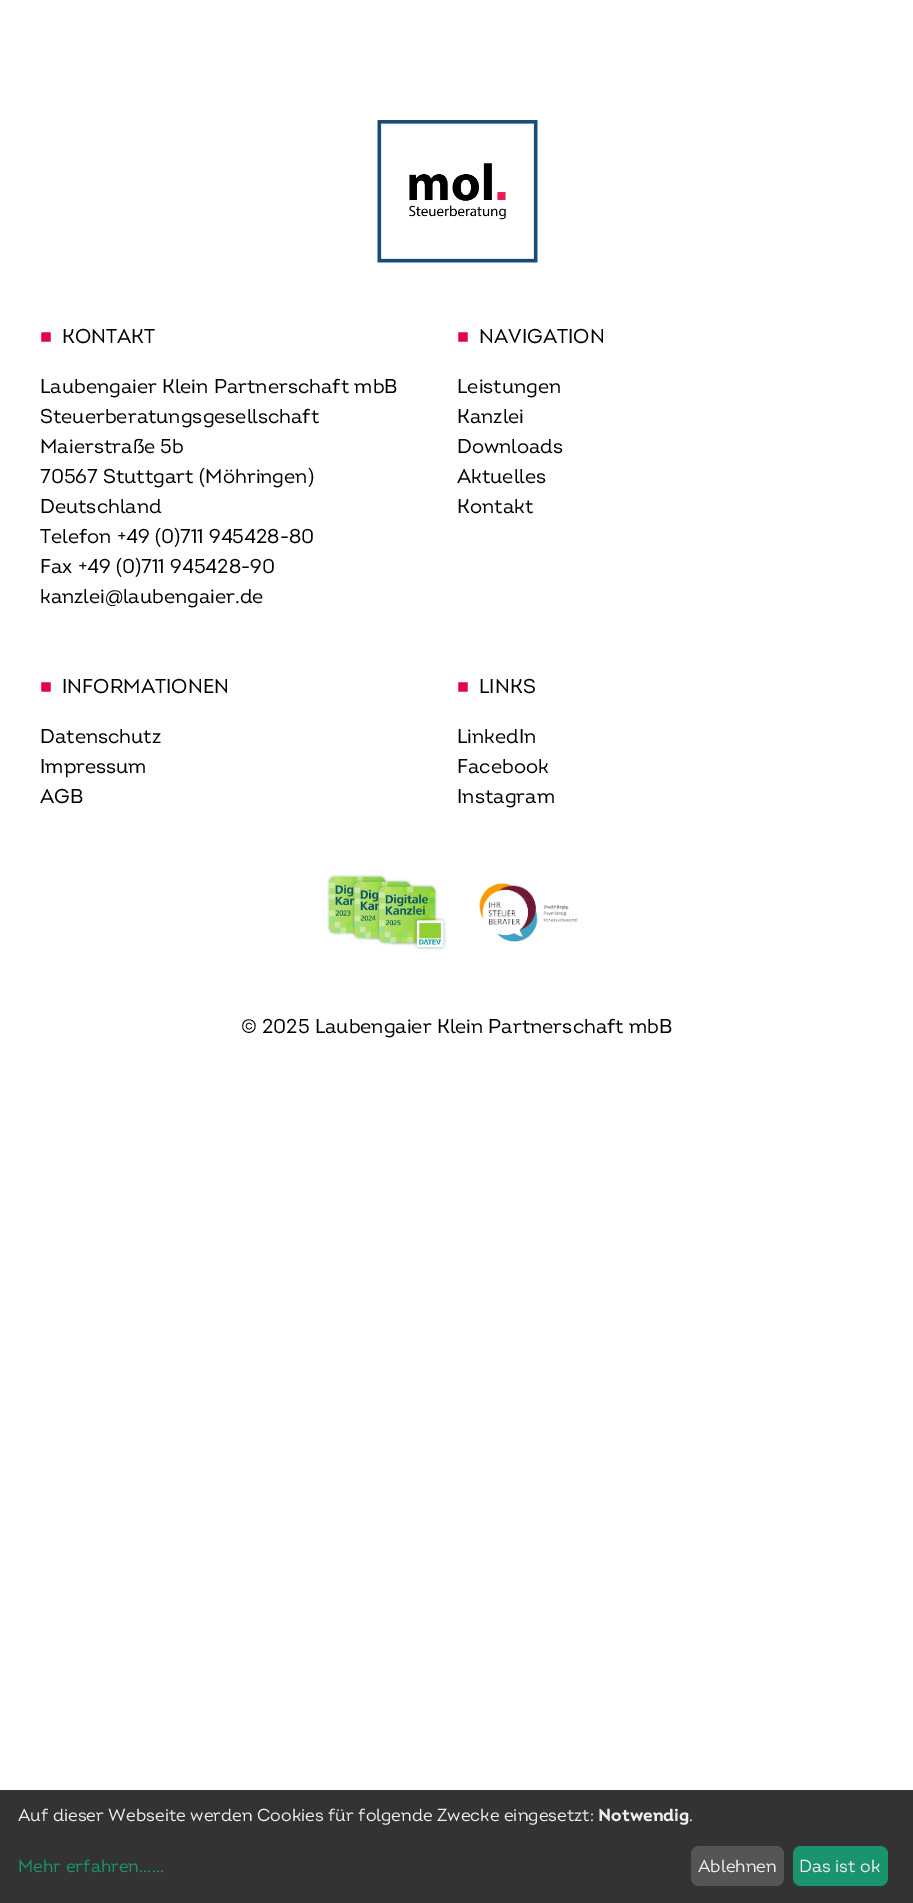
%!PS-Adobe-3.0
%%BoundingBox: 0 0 913 1903
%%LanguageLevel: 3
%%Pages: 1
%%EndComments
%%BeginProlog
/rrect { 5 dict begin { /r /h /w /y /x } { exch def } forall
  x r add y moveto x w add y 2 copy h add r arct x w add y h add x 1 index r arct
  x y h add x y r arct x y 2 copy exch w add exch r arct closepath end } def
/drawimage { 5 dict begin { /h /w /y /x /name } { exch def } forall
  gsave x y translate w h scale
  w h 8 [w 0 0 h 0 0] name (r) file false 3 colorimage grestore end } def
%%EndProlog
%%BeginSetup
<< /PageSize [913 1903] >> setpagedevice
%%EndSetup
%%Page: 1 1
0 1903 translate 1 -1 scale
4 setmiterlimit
1 setgray
0 0 913 1903 rectfill
(images/1.raw) 377 120 161 143 drawimage
(images/2.raw) 327 874 119 76 drawimage
(images/3.raw) 479 883 99 59 drawimage
0.2 setgray
0 1790 913 113 rectfill
0.333 setgray
691 1846 93 40 8 rrect fill
0.102 0.576 0.435 setrgbcolor
793 1846 95 40 8 rrect fill
/LiberationSerif-Regular [20 0 0 -20 0 0] selectfont
0.898 0 0.275 setrgbcolor
40 343 moveto (■) show
/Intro-Regular [20 0 0 -20 0 0] selectfont
0 setgray
62 343 moveto (KONTAKT) show
40 393 moveto (Laubengaier Klein Partnerschaft mbB) show
40 423 moveto (Steuerberatungsgesellschaft) show
40 453 moveto (Maierstraße 5b) show
40 483 moveto (70567 Stuttgart \(Möhringen\)) show
40 513 moveto (Deutschland) show
40 543 moveto (Telefon +49 \(0\)711 945428-80) show
40 573 moveto (Fax +49 \(0\)711 945428-90) show
40 603 moveto (kanzlei@laubengaier.de) show
/LiberationSerif-Regular [20 0 0 -20 0 0] selectfont
0.898 0 0.275 setrgbcolor
457 343 moveto (■) show
/Intro-Regular [20 0 0 -20 0 0] selectfont
0 setgray
479 343 moveto (NAVIGATION) show
457 393 moveto (Leistungen) show
457 423 moveto (Kanzlei) show
457 453 moveto (Downloads) show
457 483 moveto (Aktuelles) show
457 513 moveto (Kontakt) show
/LiberationSerif-Regular [20 0 0 -20 0 0] selectfont
0.898 0 0.275 setrgbcolor
40 693 moveto (■) show
/Intro-Regular [20 0 0 -20 0 0] selectfont
0 setgray
62 693 moveto (INFORMATIONEN) show
40 743 moveto (Datenschutz) show
40 773 moveto (Impressum) show
40 803 moveto (AGB) show
/LiberationSerif-Regular [20 0 0 -20 0 0] selectfont
0.898 0 0.275 setrgbcolor
457 693 moveto (■) show
/Intro-Regular [20 0 0 -20 0 0] selectfont
0 setgray
479 693 moveto (LINKS) show
457 743 moveto (LinkedIn) show
457 773 moveto (Facebook) show
457 803 moveto (Instagram) show
241 1033 moveto (© 2025 Laubengaier Klein Partnerschaft mbB) show
/Intro-Regular [17.5 0 0 -17.5 0 0] selectfont
0.933 setgray
18 1821 moveto (Auf dieser Webseite werden Cookies für folgende Zwecke eingesetzt:) show
/Intro-Bold [17.5 0 0 -17.5 0 0] selectfont
598 1821 moveto (Notwendig) show
/Intro-Regular [17.5 0 0 -17.5 0 0] selectfont
689 1821 moveto (.) show
0.102 0.576 0.435 setrgbcolor
18 1872 moveto (Mehr erfahren......) show
0.933 setgray
698 1872 moveto (Ablehnen) show
799 1872 moveto (Das ist ok) show
showpage
%%EOF
